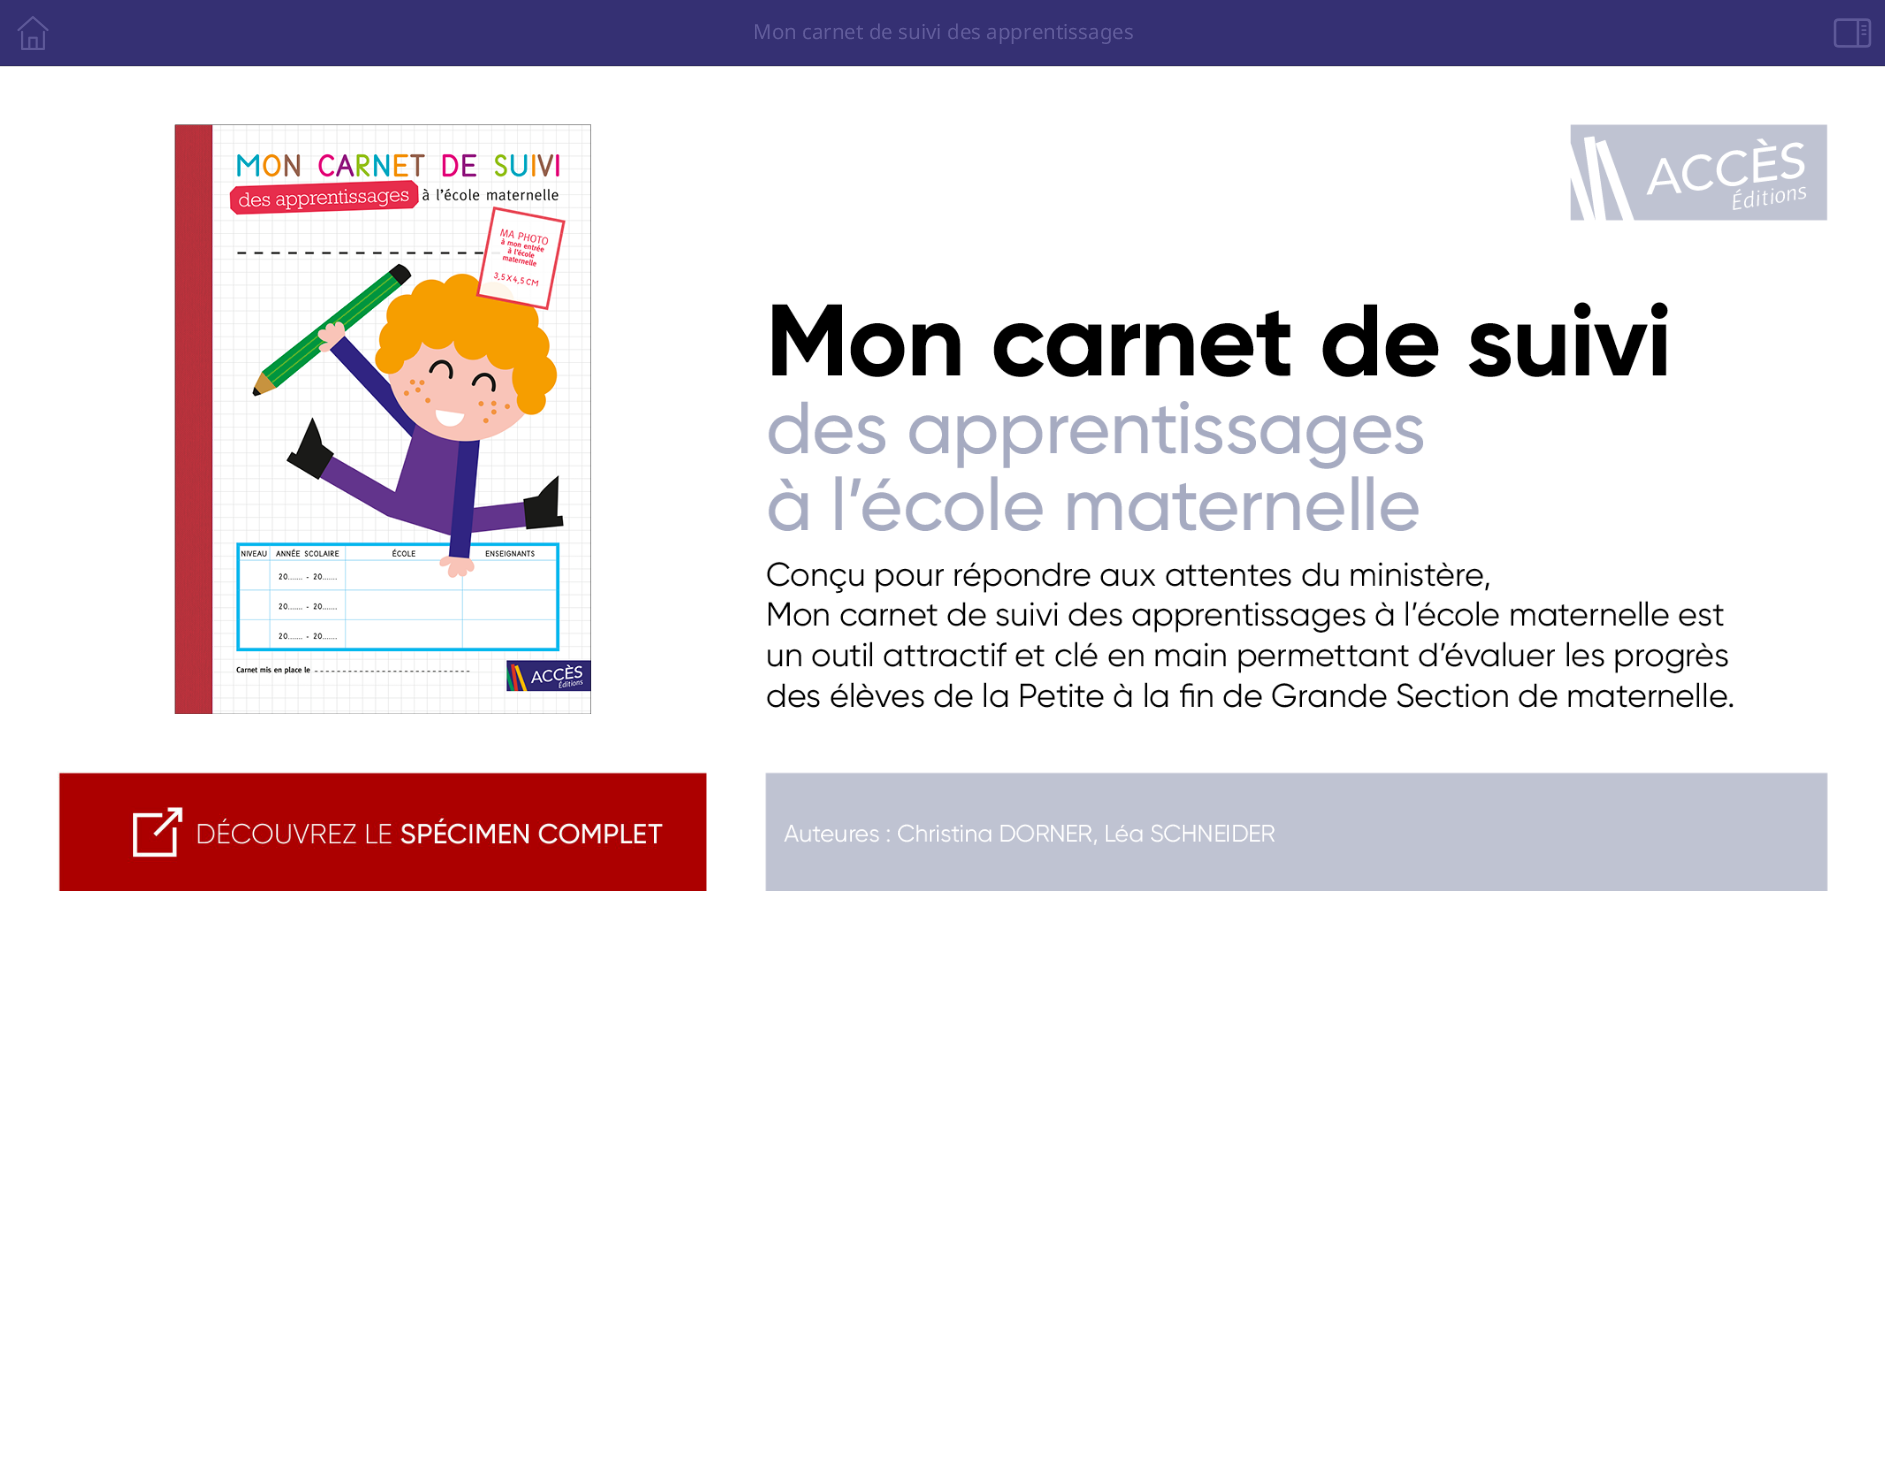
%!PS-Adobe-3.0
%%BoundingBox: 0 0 1885 1483
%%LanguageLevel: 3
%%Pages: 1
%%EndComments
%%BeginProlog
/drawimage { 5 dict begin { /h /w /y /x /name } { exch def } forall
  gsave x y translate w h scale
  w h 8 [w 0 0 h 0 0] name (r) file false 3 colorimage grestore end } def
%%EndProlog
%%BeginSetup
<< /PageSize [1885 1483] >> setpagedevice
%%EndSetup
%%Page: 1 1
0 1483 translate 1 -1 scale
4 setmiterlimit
1 setgray
0 0 1885 1483 rectfill
0.208 0.188 0.451 setrgbcolor
0 0 1885 65 rectfill
0.176 0.161 0.384 setrgbcolor
0 65 1885 1 rectfill
(images/1.raw) 17 16 32 34 drawimage
(images/2.raw) 1833 18 39 30 drawimage
0.851 setgray
0 66 1885 1 rectfill
(images/3.raw) 174 124 418 590 drawimage
(images/4.raw) 766 124 1062 584 drawimage
(images/5.raw) 57 771 650 120 drawimage
(images/6.raw) 706 772 1122 119 drawimage
/NotoSans-Regular [20.5 0 0 -20.5 0 0] selectfont
0.38 0.361 0.608 setrgbcolor
753 39 moveto (Mon carnet de suivi des apprentissages) show
showpage
%%EOF
